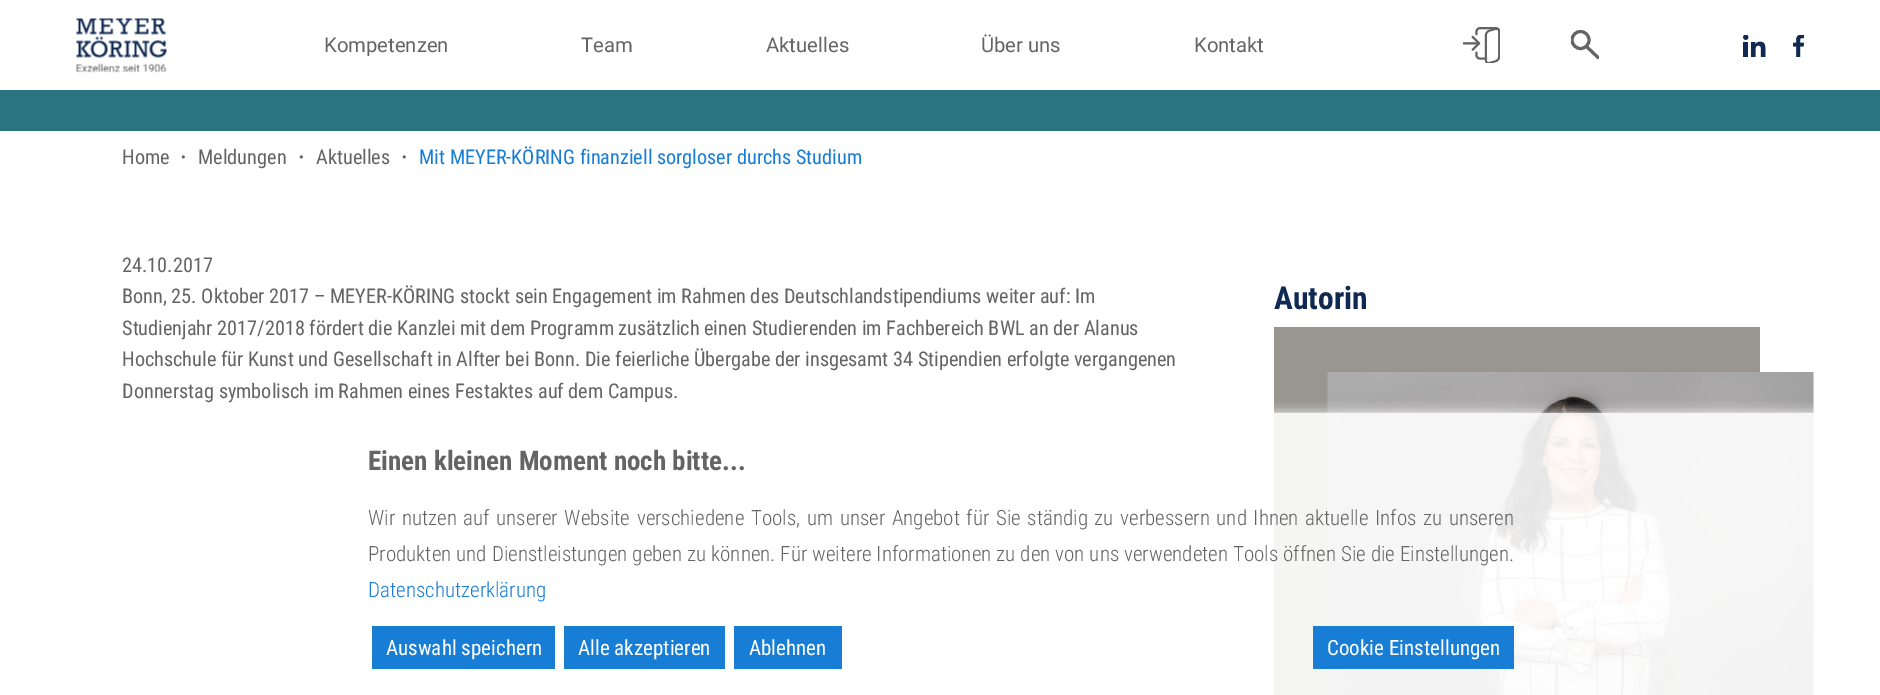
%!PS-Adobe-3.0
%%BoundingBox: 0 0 1880 695
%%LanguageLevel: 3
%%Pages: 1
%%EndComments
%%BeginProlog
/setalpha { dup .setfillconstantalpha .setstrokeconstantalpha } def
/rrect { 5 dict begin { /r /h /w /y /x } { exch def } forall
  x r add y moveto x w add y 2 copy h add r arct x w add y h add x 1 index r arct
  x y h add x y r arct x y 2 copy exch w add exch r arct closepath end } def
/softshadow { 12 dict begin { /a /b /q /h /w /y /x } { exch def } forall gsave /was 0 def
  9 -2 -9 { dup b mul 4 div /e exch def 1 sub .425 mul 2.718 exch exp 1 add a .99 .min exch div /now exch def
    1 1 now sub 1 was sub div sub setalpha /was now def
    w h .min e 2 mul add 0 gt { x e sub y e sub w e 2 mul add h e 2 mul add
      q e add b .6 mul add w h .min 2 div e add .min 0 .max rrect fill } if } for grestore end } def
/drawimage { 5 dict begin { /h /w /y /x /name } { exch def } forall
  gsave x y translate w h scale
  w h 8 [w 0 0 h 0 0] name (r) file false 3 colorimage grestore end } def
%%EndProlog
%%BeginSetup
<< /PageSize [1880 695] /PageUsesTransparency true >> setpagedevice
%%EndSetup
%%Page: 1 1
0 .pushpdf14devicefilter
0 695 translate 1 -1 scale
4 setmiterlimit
1 setgray
0 0 1880 695 rectfill
(images/1.raw) 76 18 91 55 drawimage
(images/2.raw) 1463 27 37 36 drawimage
gsave
1571 30 28 30 rectclip
0.392 setgray
3 setlinewidth
newpath 1580.5 40 8.5 0 360 arc closepath stroke
1 setlinecap
newpath 1587 47 moveto 1598 57.5 lineto stroke
grestore
(images/3.raw) 1743 35 23 22 drawimage
(images/4.raw) 1793 35 11 22 drawimage
0.165 0.455 0.506 setrgbcolor
0 90 1880 41 rectfill
0.6 0.588 0.561 setrgbcolor
1274 327 486 368 rectfill
(images/5.raw) 1327 372 487 323 drawimage
gsave
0 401 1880 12 rectclip
1 setgray
0 413 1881 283 0 6 1 softshadow
grestore
0.9 setalpha
1 setgray
1274 413 540 282 rectfill
1 setalpha
0.09 0.49 0.835 setrgbcolor
372 626 183 43 rectfill
564 626 161 43 rectfill
734 626 108 43 rectfill
1313 626 201 43 rectfill
/Roboto-Regular [20.25 0 0 -20.25 0 0] selectfont
0.392 setgray
324 52 moveto (Kompetenzen) show
581 52 moveto (Team) show
766 52 moveto (Aktuelles) show
981 52 moveto (Über uns) show
1194 52 moveto (Kontakt) show
/RobotoCondensed-Regular [20.25 0 0 -20.25 0 0] selectfont
122 164 moveto (Home) show
/WenQuanYiZenHei-Medium [20.25 0 0 -20.25 0 0] selectfont
173 164 moveto (・) show
/RobotoCondensed-Regular [20.25 0 0 -20.25 0 0] selectfont
198 164 moveto (Meldungen) show
/WenQuanYiZenHei-Medium [20.25 0 0 -20.25 0 0] selectfont
291 164 moveto (・) show
/RobotoCondensed-Regular [20.25 0 0 -20.25 0 0] selectfont
316 164 moveto (Aktuelles) show
/WenQuanYiZenHei-Medium [20.25 0 0 -20.25 0 0] selectfont
394 164 moveto (・) show
/RobotoCondensed-Regular [20.25 0 0 -20.25 0 0] selectfont
0.09 0.49 0.835 setrgbcolor
419 164 moveto (Mit MEYER-KÖRING finanziell sorgloser durchs Studium) show
0.392 setgray
122 272 moveto (24.10.2017) show
122 303 moveto (Bonn, 25. Oktober 2017 – MEYER-KÖRING stockt sein Engagement im Rahmen des Deutschlandstipendiums weiter auf: Im) show
122 335 moveto (Studienjahr 2017/2018 fördert die Kanzlei mit dem Programm zusätzlich einen Studierenden im Fachbereich BWL an der Alanus) show
122 366 moveto (Hochschule für Kunst und Gesellschaft in Alfter bei Bonn. Die feierliche Übergabe der insgesamt 34 Stipendien erfolgte vergangenen) show
122 398 moveto (Donnerstag symbolisch im Rahmen eines Festaktes auf dem Campus.) show
/RobotoCondensed-Bold [31.5 0 0 -31.5 0 0] selectfont
0.059 0.161 0.322 setrgbcolor
1274 309 moveto (Autorin) show
/RobotoCondensed-Bold [27 0 0 -27 0 0] selectfont
0.392 setgray
368 470 moveto (Einen kleinen Moment noch bitte...) show
/RobotoCondensed-Light [21 0 0 -21 0 0] selectfont
368 525 moveto 1.9 0 32 (Wir nutzen auf unserer Website verschiedene Tools, um unser Angebot für Sie ständig zu verbessern und Ihnen aktuelle Infos zu unseren) widthshow
368 561 moveto 0.2 0 32 (Produkten und Dienstleistungen geben zu können. Für weitere Informationen zu den von uns verwendeten Tools öffnen Sie die Einstellungen.) widthshow
0.09 0.49 0.835 setrgbcolor
368 597 moveto (Datenschutzerklärung) show
/RobotoCondensed-Regular [21 0 0 -21 0 0] selectfont
1 setgray
386 655 moveto (Auswahl speichern) show
578 655 moveto (Alle akzeptieren) show
749 655 moveto (Ablehnen) show
1327 655 moveto (Cookie Einstellungen) show
.poppdf14devicefilter showpage
%%EOF
